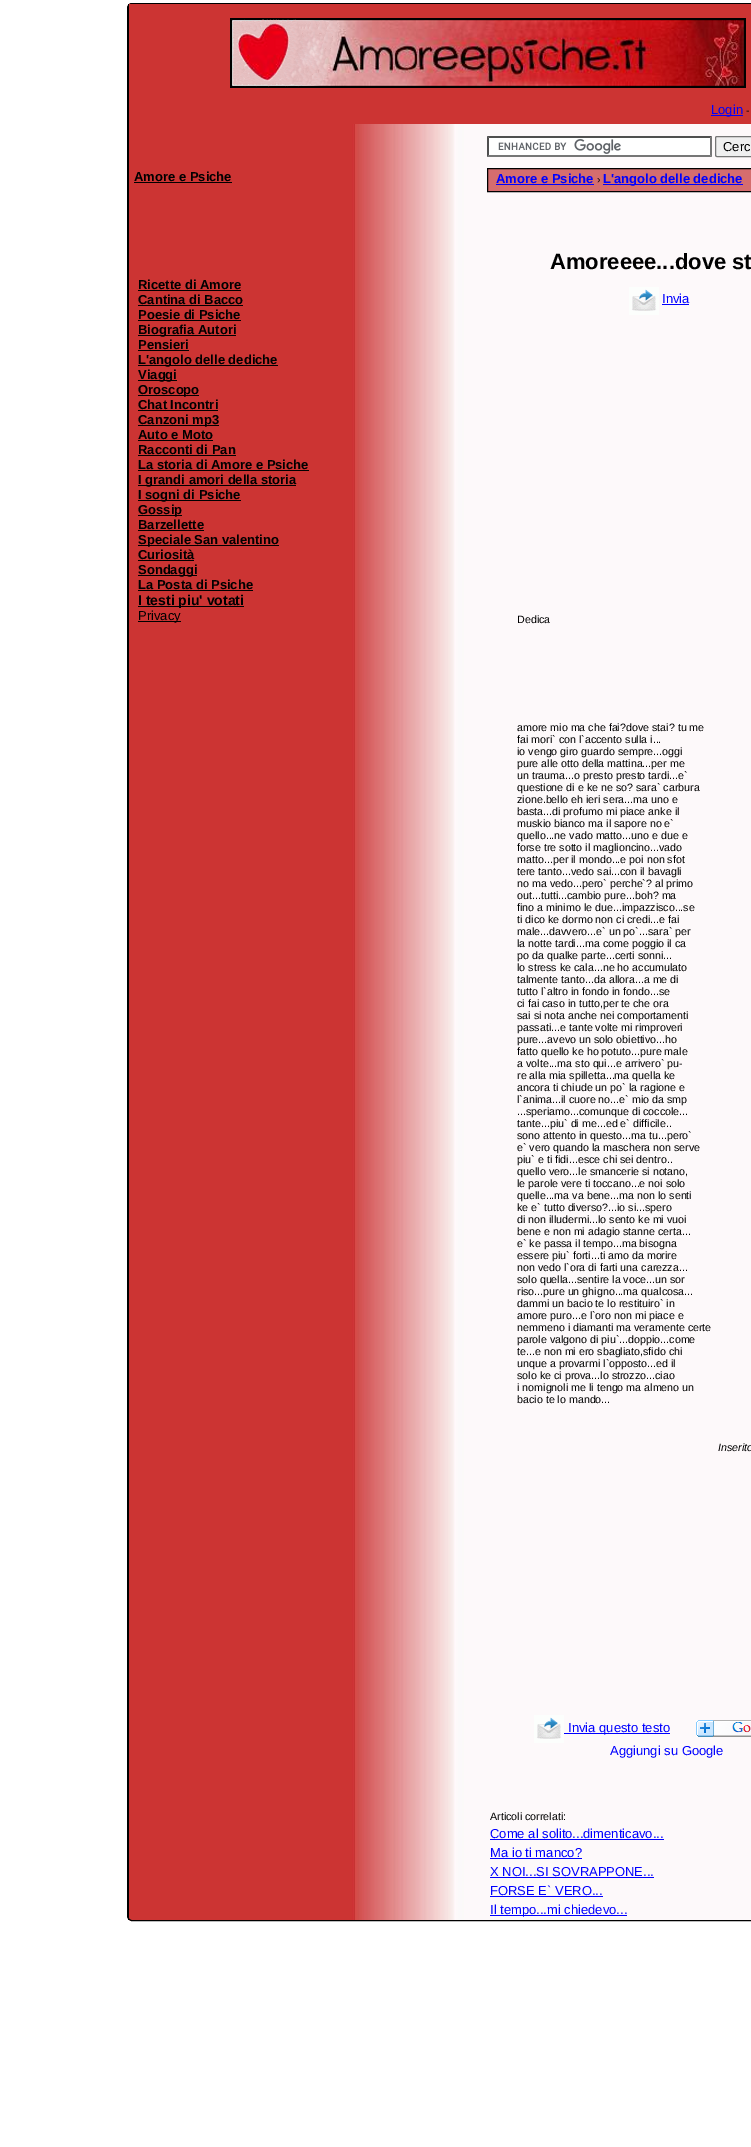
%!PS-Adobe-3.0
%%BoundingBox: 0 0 751 2147
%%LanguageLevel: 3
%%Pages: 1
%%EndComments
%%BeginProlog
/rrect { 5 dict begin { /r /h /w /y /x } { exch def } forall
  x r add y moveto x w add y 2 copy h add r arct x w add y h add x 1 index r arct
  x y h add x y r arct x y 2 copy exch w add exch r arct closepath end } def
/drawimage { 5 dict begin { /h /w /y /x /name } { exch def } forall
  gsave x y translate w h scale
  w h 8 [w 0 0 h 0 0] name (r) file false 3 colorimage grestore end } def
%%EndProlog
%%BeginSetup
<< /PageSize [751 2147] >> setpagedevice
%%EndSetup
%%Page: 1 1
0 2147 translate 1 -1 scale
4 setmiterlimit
1 setgray
0 0 751 2147 rectfill
(images/1.raw) 127 3 624 1918 drawimage
0 setgray
127.5 3.5 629 1917 4.5 rrect stroke
0.8 0.204 0.2 setrgbcolor
129 4 622 120 rectfill
0 setgray
128 4 1 1916 rectfill
(images/2.raw) 230 18 516 70 drawimage
0 0 1 setrgbcolor
711 115 32 1 rectfill
0 setgray
134 182 98 1 rectfill
138 290 103 1 rectfill
138 305 105 1 rectfill
138 320 103 1 rectfill
138 335 98 1 rectfill
138 350 51 1 rectfill
138 365 140 1 rectfill
138 380 39 1 rectfill
138 395 61 1 rectfill
138 410 80 1 rectfill
138 425 81 1 rectfill
138 440 75 1 rectfill
138 455 98 1 rectfill
138 470 171 1 rectfill
138 485 158 1 rectfill
138 500 103 1 rectfill
138 515 44 1 rectfill
138 530 66 1 rectfill
138 545 141 1 rectfill
138 560 56 1 rectfill
138 575 59 1 rectfill
138 590 115 1 rectfill
138 606 106 1 rectfill
138 621 43 1 rectfill
1 setgray
487 136 225 21 rectfill
(images/3.raw) 498 139 123 15 drawimage
0.31 setgray
newpath 487 136 moveto 712 136 lineto 710 138 lineto 489 138 lineto closepath fill
0.463 setgray
newpath 712 136 moveto 712 157 lineto 710 155 lineto 710 138 lineto closepath fill
newpath 712 157 moveto 487 157 lineto 489 155 lineto 710 155 lineto closepath fill
0.31 setgray
newpath 487 157 moveto 487 136 lineto 489 138 lineto 489 155 lineto closepath fill
0.937 setgray
715.5 136.5 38 20 1.5 rrect gsave fill grestore
0.463 setgray
stroke
0.835 0.427 0.431 setrgbcolor
newpath 487.5 168.5 moveto 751.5 168.5 lineto 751.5 191.5 lineto 487.5 191.5 lineto closepath gsave fill grestore
0 setgray
stroke
0 0 1 setrgbcolor
496 184 98 1 rectfill
603 184 140 1 rectfill
(images/4.raw) 629 287 30 28 drawimage
662 304 27 1 rectfill
(images/4.raw) 534 1715 30 28 drawimage
564 1733 106 1 rectfill
(images/5.raw) 696 1720 55 17 drawimage
490 1839 174 1 rectfill
490 1858 92 1 rectfill
490 1877 164 1 rectfill
490 1896 113 1 rectfill
490 1915 137 1 rectfill
/LiberationSans-Regular [13 0 0 -13 0 0] selectfont
711 114 moveto (Login) show
/LiberationSans-Regular [10.7 0 0 -10.7 0 0] selectfont
0 setgray
746 114 moveto (-) show
/LiberationSans-Bold [13 0 0 -13 0 0] selectfont
134 181 moveto (Amore e Psiche) show
138 289 moveto (Ricette di Amore) show
138 304 moveto (Cantina di Bacco) show
138 319 moveto (Poesie di Psiche) show
138 334 moveto (Biografia Autori) show
138 349 moveto (Pensieri) show
138 364 moveto (L'angolo delle dediche) show
138 379 moveto (Viaggi) show
138 394 moveto (Oroscopo) show
138 409 moveto (Chat Incontri) show
138 424 moveto (Canzoni mp3) show
138 439 moveto (Auto e Moto) show
138 454 moveto (Racconti di Pan) show
138 469 moveto (La storia di Amore e Psiche) show
138 484 moveto (I grandi amori della storia) show
138 499 moveto (I sogni di Psiche) show
138 514 moveto (Gossip) show
138 529 moveto (Barzellette) show
138 544 moveto (Speciale San valentino) show
138 559 moveto (Curiosità) show
138 574 moveto (Sondaggi) show
138 589 moveto (La Posta di Psiche) show
/LiberationSans-Bold [14 0 0 -14 0 0] selectfont
138 605 moveto (I testi piu' votati) show
/LiberationSans-Regular [13 0 0 -13 0 0] selectfont
138 620 moveto (Privacy) show
723 151 moveto (Cerc) show
/LiberationSans-Bold [13 0 0 -13 0 0] selectfont
0 0 1 setrgbcolor
496 183 moveto (Amore e Psiche) show
/LiberationSans-Regular [10.7 0 0 -10.7 0 0] selectfont
0 setgray
597 183 moveto (›) show
/LiberationSans-Bold [13 0 0 -13 0 0] selectfont
0 0 1 setrgbcolor
603 183 moveto (L'angolo delle dediche) show
/LiberationSans-Bold [22 0 0 -22 0 0] selectfont
0 setgray
550 269 moveto (Amoreeee...dove st) show
/LiberationSans-Regular [13 0 0 -13 0 0] selectfont
0 0 1 setrgbcolor
662 303 moveto (Invia) show
/LiberationSans-Regular [10.7 0 0 -10.7 0 0] selectfont
0 setgray
517 623 moveto (Dedica) show
517 731 moveto (amore mio ma che fai?dove stai? tu me) show
517 743 moveto (fai mori` con l`accento sulla i...) show
517 755 moveto (io vengo giro guardo sempre...oggi) show
517 767 moveto (pure alle otto della mattina...per me) show
517 779 moveto (un trauma...o presto presto tardi...e`) show
517 791 moveto (questione di e ke ne so? sara` carbura) show
517 803 moveto (zione.bello eh ieri sera...ma uno e) show
517 815 moveto (basta...di profumo mi piace anke il) show
517 827 moveto (muskio bianco ma il sapore no e`) show
517 839 moveto (quello...ne vado matto...uno e due e) show
517 851 moveto (forse tre sotto il maglioncino...vado) show
517 863 moveto (matto...per il mondo...e poi non sfot) show
517 875 moveto (tere tanto...vedo sai...con il bavagli) show
517 887 moveto (no ma vedo...pero` perche`? al primo) show
517 899 moveto (out...tutti...cambio pure...boh? ma) show
517 911 moveto (fino a minimo le due...impazzisco...se) show
517 923 moveto (ti dico ke dormo non ci credi...e fai) show
517 935 moveto (male...davvero...e` un po`...sara` per) show
517 947 moveto (la notte tardi...ma come poggio il ca) show
517 959 moveto (po da qualke parte...certi sonni...) show
517 971 moveto (lo stress ke cala...ne ho accumulato) show
517 983 moveto (talmente tanto...da allora...a me di) show
517 995 moveto (tutto l`altro in fondo in fondo...se) show
517 1007 moveto (ci fai caso in tutto,per te che ora) show
517 1019 moveto (sai si nota anche nei comportamenti) show
517 1031 moveto (passati...e tante volte mi rimproveri) show
517 1043 moveto (pure...avevo un solo obiettivo...ho) show
517 1055 moveto (fatto quello ke ho potuto...pure male) show
517 1067 moveto (a volte...ma sto qui...e arrivero` pu-) show
517 1079 moveto (re alla mia spilletta...ma quella ke) show
517 1091 moveto (ancora ti chiude un po` la ragione e) show
517 1103 moveto (l`anima...il cuore no...e` mio da smp) show
517 1115 moveto (...speriamo...comunque di coccole...) show
517 1127 moveto (tante...piu` di me...ed e` difficile..) show
517 1139 moveto (sono attento in questo...ma tu...pero`) show
517 1151 moveto (e` vero quando la maschera non serve) show
517 1163 moveto (piu` e ti fidi...esce chi sei dentro..) show
517 1175 moveto (quello vero...le smancerie si notano,) show
517 1187 moveto (le parole vere ti toccano...e noi solo) show
517 1199 moveto (quelle...ma va bene...ma non lo senti) show
517 1211 moveto (ke e` tutto diverso?...io si...spero) show
517 1223 moveto (di non illudermi...lo sento ke mi vuoi) show
517 1235 moveto (bene e non mi adagio stanne certa...) show
517 1247 moveto (e` ke passa il tempo...ma bisogna) show
517 1259 moveto (essere piu` forti...ti amo da morire) show
517 1271 moveto (non vedo l`ora di farti una carezza...) show
517 1283 moveto (solo quella...sentire la voce...un sor) show
517 1295 moveto (riso...pure un ghigno...ma qualcosa...) show
517 1307 moveto (dammi un bacio te lo restituiro` in) show
517 1319 moveto (amore puro...e l`oro non mi piace e) show
517 1331 moveto (nemmeno i diamanti ma veramente certe) show
517 1343 moveto (parole valgono di piu`...doppio...come) show
517 1355 moveto (te...e non mi ero sbagliato,sfido chi) show
517 1367 moveto (unque a provarmi l`opposto...ed il) show
517 1379 moveto (solo ke ci prova...lo strozzo...ciao) show
517 1391 moveto (i nomignoli me li tengo ma almeno un) show
517 1403 moveto (bacio te lo mando...) show
/LiberationSans-Italic [10.7 0 0 -10.7 0 0] selectfont
718 1451 moveto (Inserito) show
/LiberationSans-Regular [13 0 0 -13 0 0] selectfont
0 0 1 setrgbcolor
568 1732 moveto (Invia questo testo) show
610 1755 moveto (Aggiungi su Google) show
/LiberationSans-Regular [10.7 0 0 -10.7 0 0] selectfont
0 setgray
490 1820 moveto (Articoli correlati:) show
/LiberationSans-Regular [13 0 0 -13 0 0] selectfont
0 0 1 setrgbcolor
490 1838 moveto (Come al solito...dimenticavo...) show
490 1857 moveto (Ma io ti manco?) show
490 1876 moveto (X NOI...SI SOVRAPPONE...) show
490 1895 moveto (FORSE E` VERO...) show
490 1914 moveto (Il tempo...mi chiedevo...) show
showpage
%%EOF
